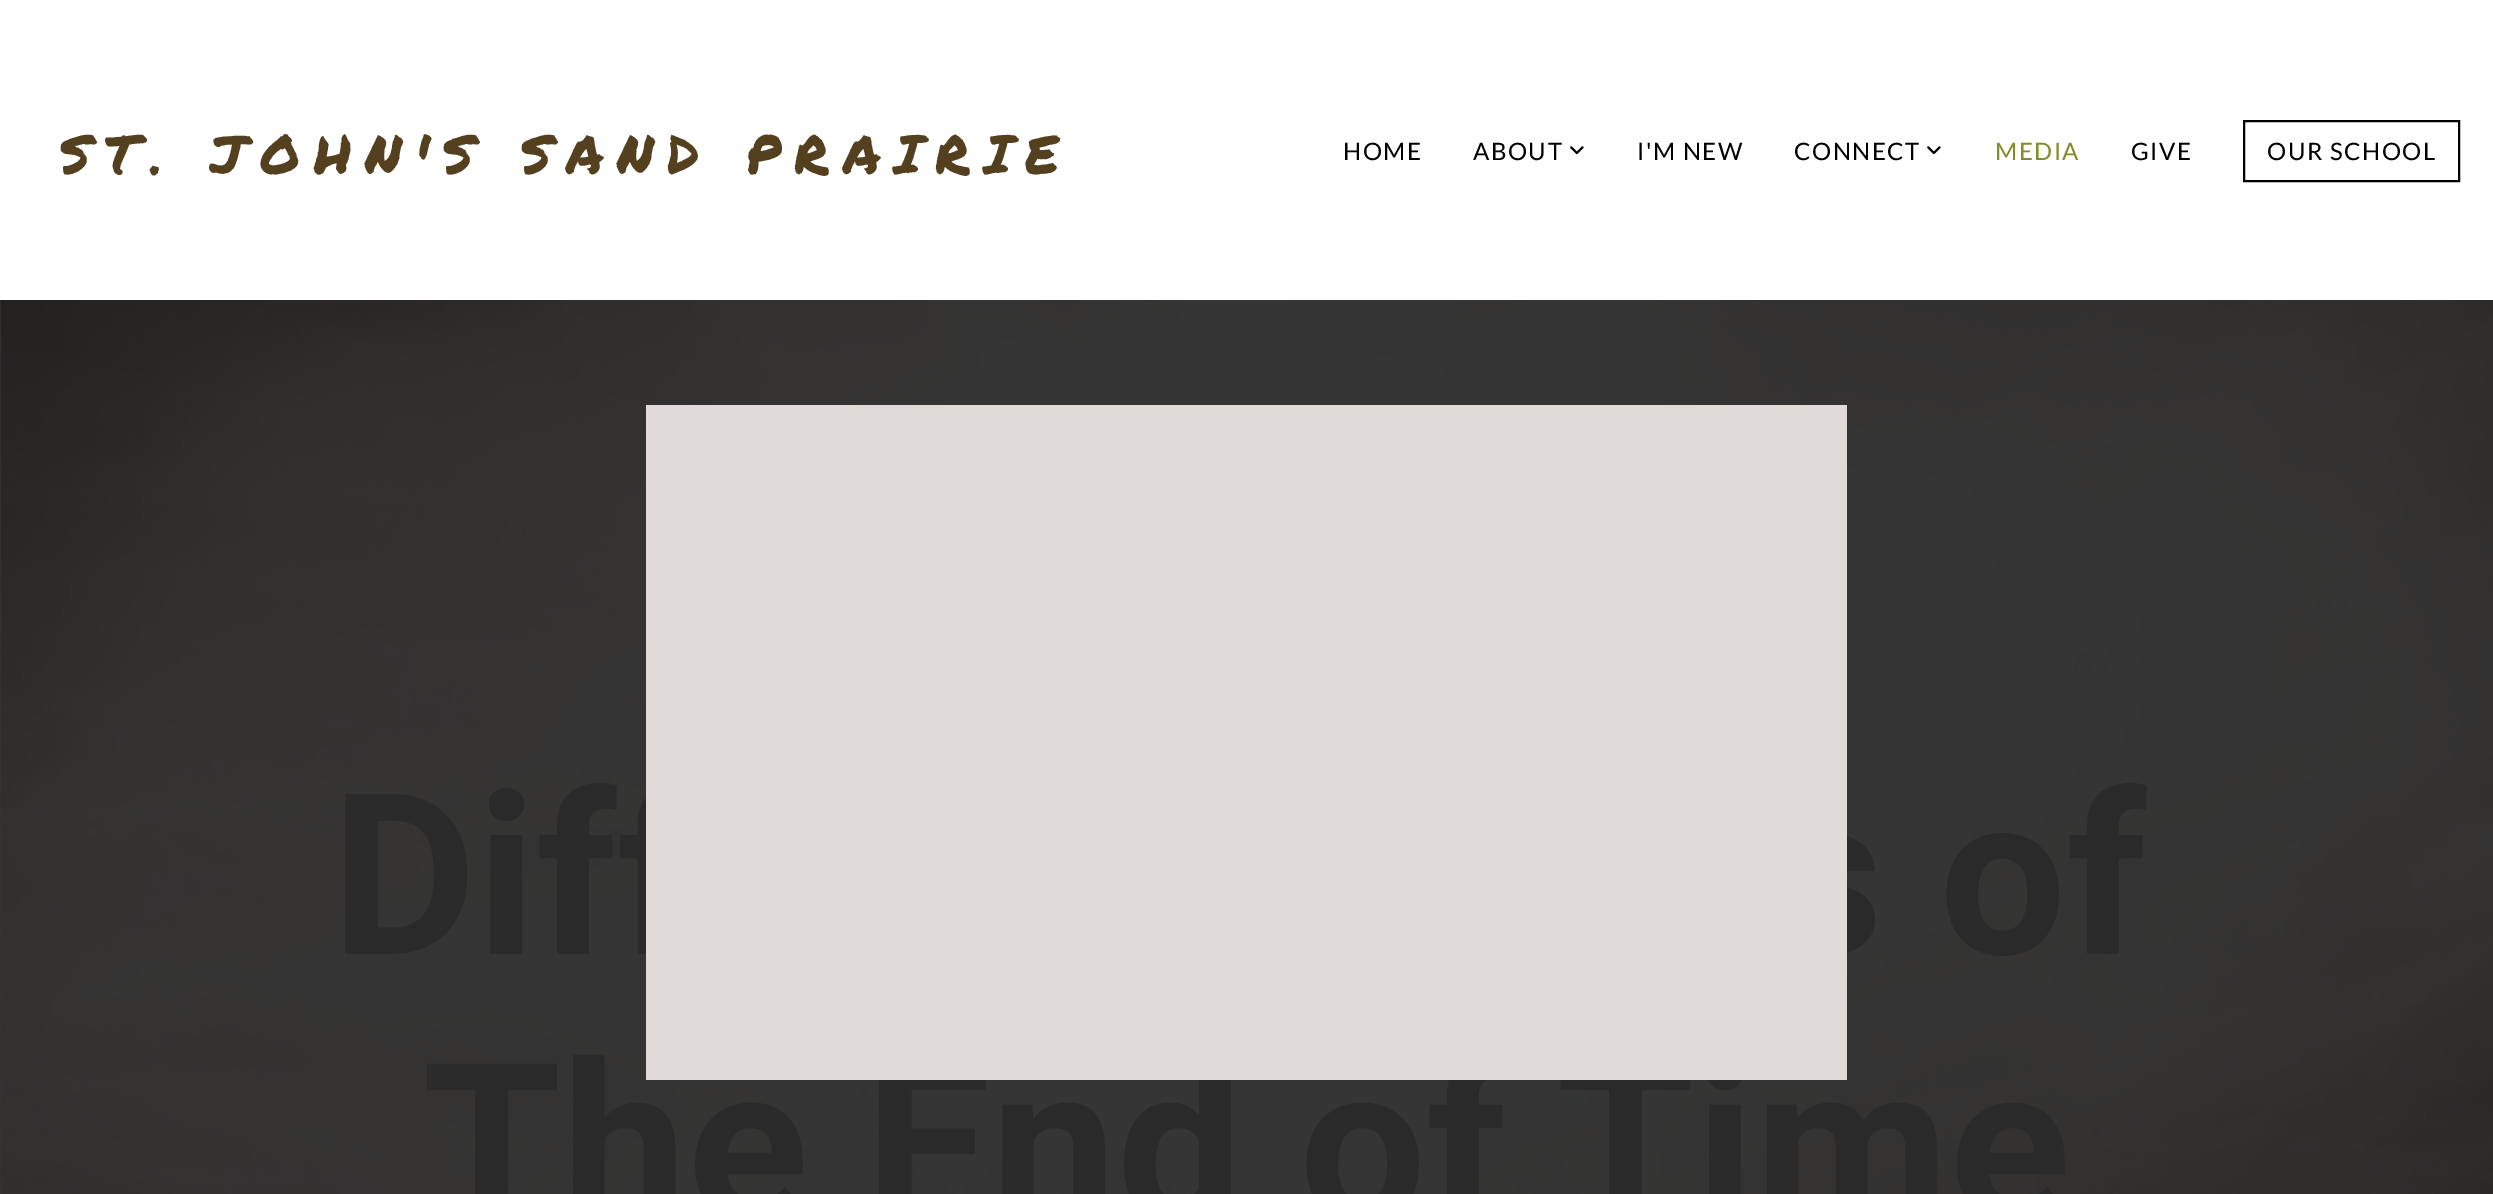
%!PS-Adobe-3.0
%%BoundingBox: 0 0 2493 1194
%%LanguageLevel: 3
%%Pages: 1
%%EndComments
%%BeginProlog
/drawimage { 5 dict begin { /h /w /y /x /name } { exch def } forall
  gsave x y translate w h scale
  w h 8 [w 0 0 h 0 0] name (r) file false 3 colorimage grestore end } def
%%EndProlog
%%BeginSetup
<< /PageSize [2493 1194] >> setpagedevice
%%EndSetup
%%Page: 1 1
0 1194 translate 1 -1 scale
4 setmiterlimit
0.204 setgray
0 0 2493 1194 rectfill
1 setgray
0 0 2493 300 rectfill
(images/1.raw) 1570 146 14 9 drawimage
(images/1.raw) 1927 146 14 9 drawimage
0 setgray
2 setlinewidth
2244 121 215 60 rectstroke
(images/2.raw) 0 300 2493 894 drawimage
0.878 0.859 0.847 setrgbcolor
646 405 1201 675 rectfill
/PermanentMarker-Regular [54 0 0 -54 0 0] selectfont
0.329 0.251 0.122 setrgbcolor
60 174 moveto 13.5 0 (ST. JOHN'S SAND PRAIRIE) ashow
/Lato-Regular [24 0 0 -24 0 0] selectfont
0 setgray
1343 160 moveto 1.5 0 (HOME) ashow
1473 160 moveto 1.5 0 (ABOUT) ashow
1637 160 moveto 1.5 0 (I'M NEW) ashow
1794 160 moveto 1.5 0 (CONNECT) ashow
0.49 0.561 0.161 setrgbcolor
1995 160 moveto 1.5 0 (MEDIA) ashow
0 setgray
2131 160 moveto 1.5 0 (GIVE) ashow
2267 160 moveto 1.5 0 (OUR SCHOOL) ashow
showpage
%%EOF
